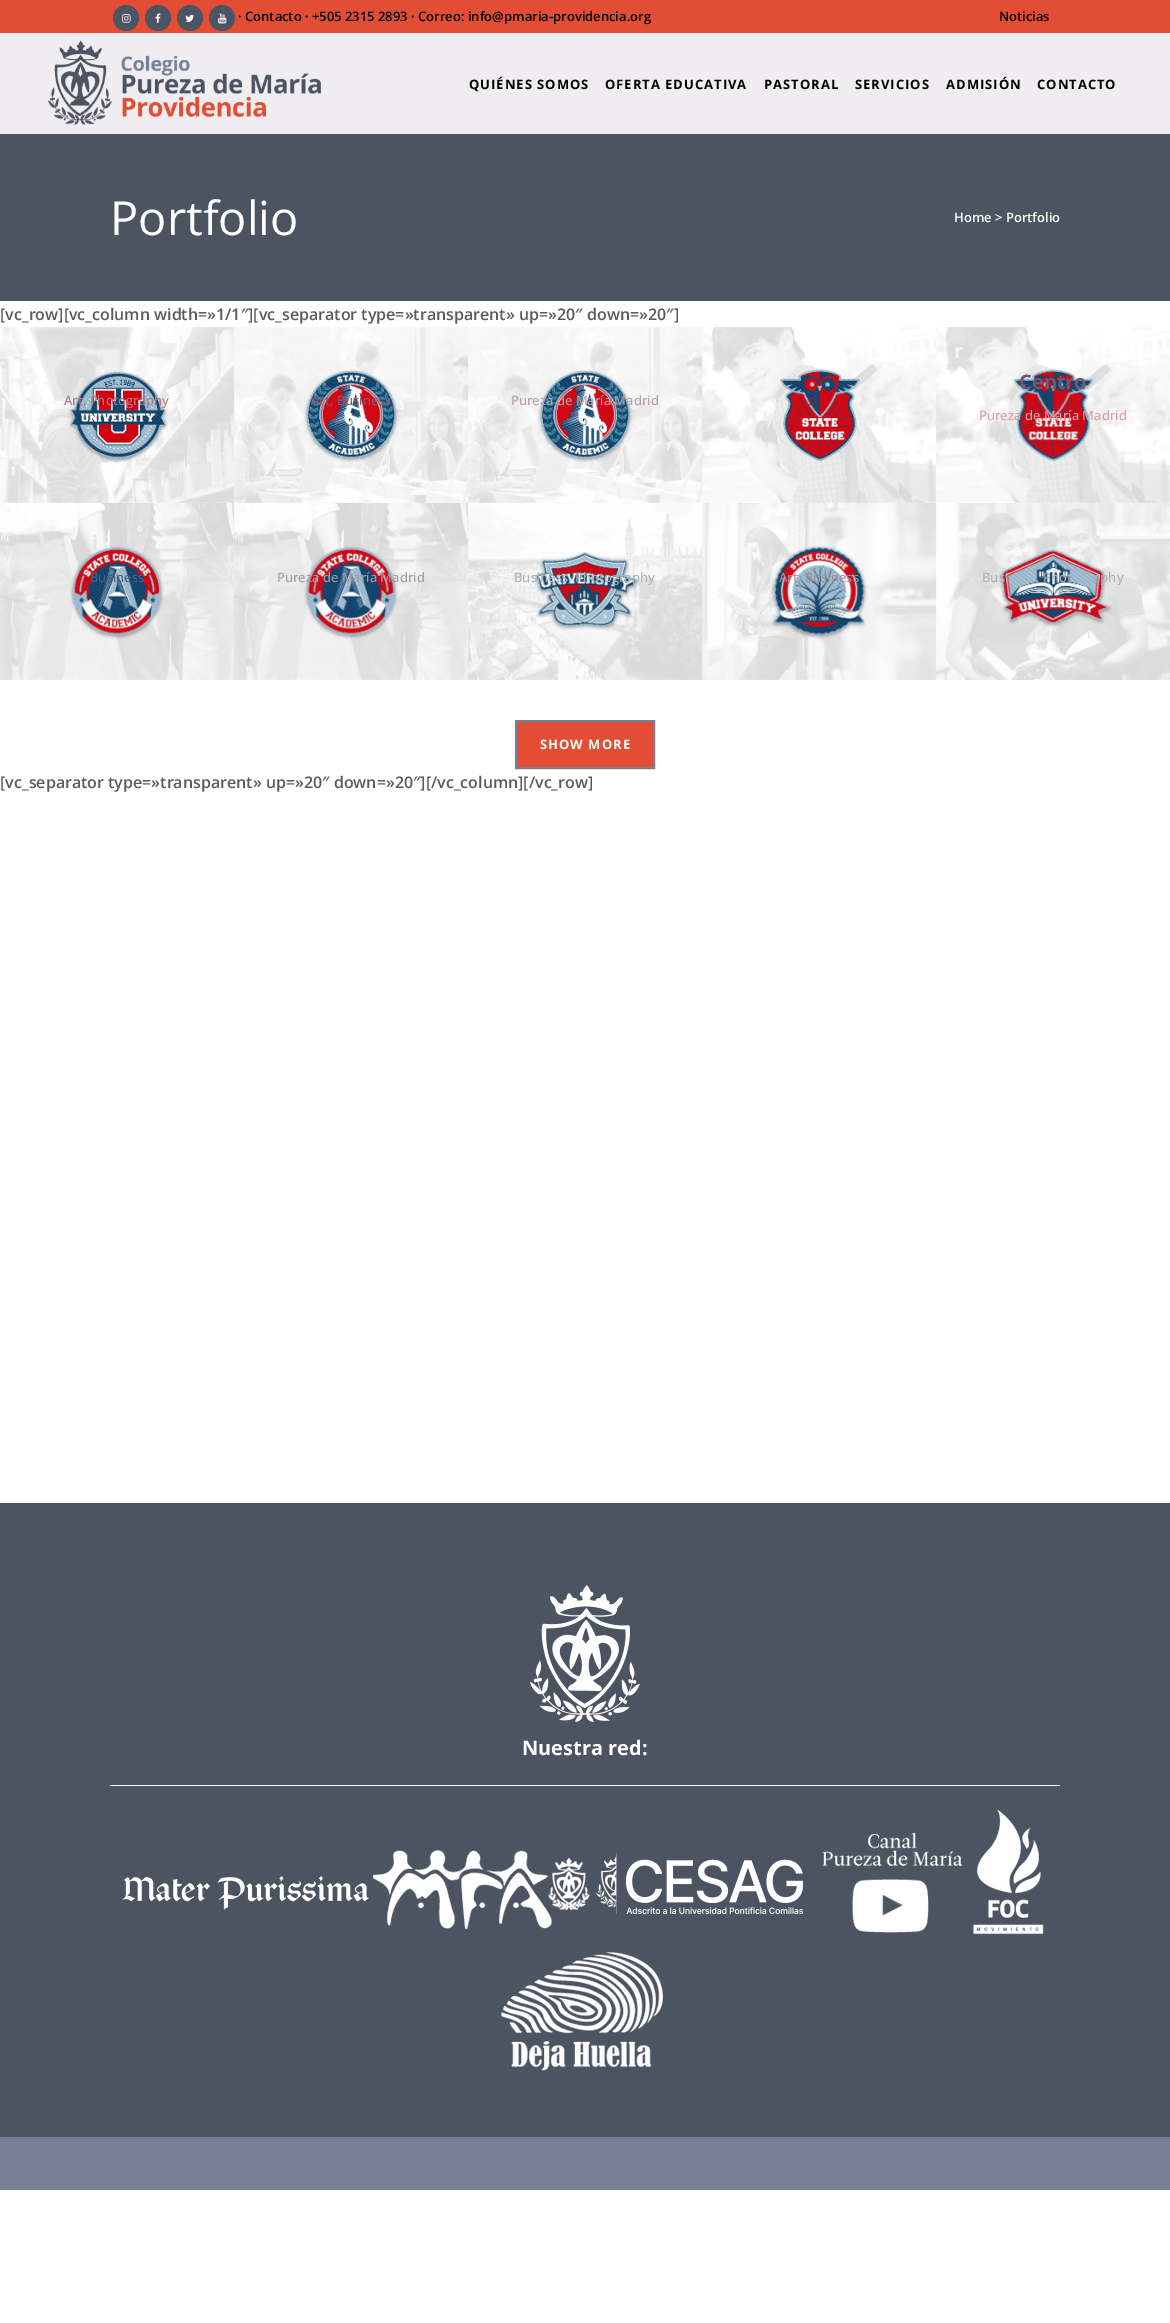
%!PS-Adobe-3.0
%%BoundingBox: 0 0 1170 2323
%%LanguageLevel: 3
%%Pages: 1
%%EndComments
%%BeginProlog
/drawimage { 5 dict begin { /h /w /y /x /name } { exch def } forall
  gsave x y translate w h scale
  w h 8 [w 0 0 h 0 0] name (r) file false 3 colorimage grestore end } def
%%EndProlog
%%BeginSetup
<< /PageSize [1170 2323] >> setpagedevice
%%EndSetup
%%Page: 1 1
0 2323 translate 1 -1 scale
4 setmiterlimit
1 setgray
0 0 1170 2323 rectfill
0.886 0.302 0.2 setrgbcolor
0 0 1170 33 rectfill
0.298 0.325 0.38 setrgbcolor
newpath 126 18 13 0 360 arc closepath fill
(images/1.raw) 122 14 9 9 drawimage
newpath 158 18 13 0 360 arc closepath fill
(images/2.raw) 155 13 6 10 drawimage
newpath 190 18 13 0 360 arc closepath fill
(images/3.raw) 185 14 9 8 drawimage
newpath 222 18 13 0 360 arc closepath fill
(images/4.raw) 218 13 9 11 drawimage
0.937 0.929 0.937 setrgbcolor
0 33 1170 101 rectfill
(images/5.raw) 47 40 274 85 drawimage
0.298 0.325 0.38 setrgbcolor
0 134 1170 167 rectfill
(images/7.raw) 0 327 235 176 drawimage
(images/8.raw) 234 327 235 176 drawimage
(images/9.raw) 468 327 235 176 drawimage
(images/10.raw) 702 327 235 176 drawimage
(images/6.raw) 936 327 234 176 drawimage
(images/11.raw) 0 503 235 177 drawimage
(images/12.raw) 234 503 235 177 drawimage
(images/13.raw) 468 503 235 177 drawimage
(images/14.raw) 702 503 235 177 drawimage
(images/15.raw) 936 503 234 177 drawimage
0.886 0.302 0.2 setrgbcolor
newpath 516 721 moveto 654 721 lineto 654 768 lineto 516 768 lineto closepath gsave fill grestore
0.459 0.502 0.588 setrgbcolor
2 setlinewidth
stroke
0.298 0.325 0.38 setrgbcolor
0 1503 1170 634 rectfill
(images/16.raw) 530 1585 110 137 drawimage
1 setgray
110 1785 950 1 rectfill
(images/17.raw) 122 1876 247 34 drawimage
(images/18.raw) 373 1849 218 81 drawimage
(images/19.raw) 596 1853 207 61 drawimage
(images/20.raw) 822 1832 141 101 drawimage
(images/21.raw) 973 1809 71 126 drawimage
(images/22.raw) 501 1951 162 120 drawimage
0.459 0.502 0.588 setrgbcolor
0 2137 1170 53 rectfill
/OpenSans-SemiBold [13 0 0 -13 0 0] selectfont
0 setgray
238 21 moveto (· Contacto · +505 2315 2893 · Correo: info@pmaria-providencia.org) show
999 21 moveto (Noticias) show
/OpenSans-Bold [13 0 0 -13 0 0] selectfont
469 89 moveto 1 0 (QUIÉNES SOMOS) ashow
605 89 moveto 1 0 (OFERTA EDUCATIVA) ashow
764 89 moveto 1 0 (PASTORAL) ashow
855 89 moveto 1 0 (SERVICIOS) ashow
946 89 moveto 1 0 (ADMISIÓN) ashow
1037 89 moveto 1 0 (CONTACTO) ashow
/OpenSans-Regular [47 0 0 -47 0 0] selectfont
1 setgray
110 235 moveto (Portfolio) show
/OpenSans-SemiBold [13 0 0 -13 0 0] selectfont
954 222 moveto (Home > Portfolio) show
/OpenSans-SemiBold [16 0 0 -16 0 0] selectfont
0.357 setgray
0 320 moveto ([vc_row][vc_column width=»1/1″][vc_separator type=»transparent» up=»20″ down=»20″]) show
/OpenSans-Bold [20 0 0 -20 0 0] selectfont
0.965 setgray
954 358 moveto (r) show
0.427 0.349 0.451 setrgbcolor
1019 389 moveto (Centro) show
/OpenSans-Medium [13 0 0 -13 0 0] selectfont
0.847 0.631 0.659 setrgbcolor
979 420 moveto (Pureza de María Madrid) show
0.686 0.482 0.537 setrgbcolor
64 405 moveto (Art, Photography) show
/OpenSans-Bold [10 0 0 -10 0 0] selectfont
0.902 setgray
144 462 moveto 1 0 (V) ashow
/OpenSans-Medium [13 0 0 -13 0 0] selectfont
0.537 0.353 0.435 setrgbcolor
311 405 moveto (Art, Business) show
0.722 0.624 0.671 setrgbcolor
511 405 moveto (Pureza de María Madrid) show
0.635 0.133 0.208 setrgbcolor
808 405 moveto (si) show
/OpenSans-Bold [20 0 0 -20 0 0] selectfont
0.902 setgray
92 550 moveto (i) show
/OpenSans-Medium [13 0 0 -13 0 0] selectfont
0.29 0.384 0.506 setrgbcolor
90 582 moveto (Business) show
0.651 0.604 0.663 setrgbcolor
277 582 moveto (Pureza de María Madrid) show
0.655 0.702 0.749 setrgbcolor
514 582 moveto (Business, Photography) show
0.62 0.565 0.635 setrgbcolor
779 582 moveto (Art, Business) show
0.655 0.702 0.749 setrgbcolor
982 582 moveto (Busi) show
1036 582 moveto (, Phot) show
1093 582 moveto (aphy) show
/OpenSans-Bold [10 0 0 -10 0 0] selectfont
0.902 setgray
1087 639 moveto 1 0 (I) ashow
/OpenSans-Bold [13 0 0 -13 0 0] selectfont
1 setgray
540 749 moveto 1 0 (SHOW MORE) ashow
/OpenSans-SemiBold [16 0 0 -16 0 0] selectfont
0.357 setgray
0 788 moveto ([vc_separator type=»transparent» up=»20″ down=»20″][/vc_column][/vc_row]) show
/OpenSans-Bold [20 0 0 -20 0 0] selectfont
1 setgray
522 1755 moveto (Nuestra red:) show
showpage
%%EOF
